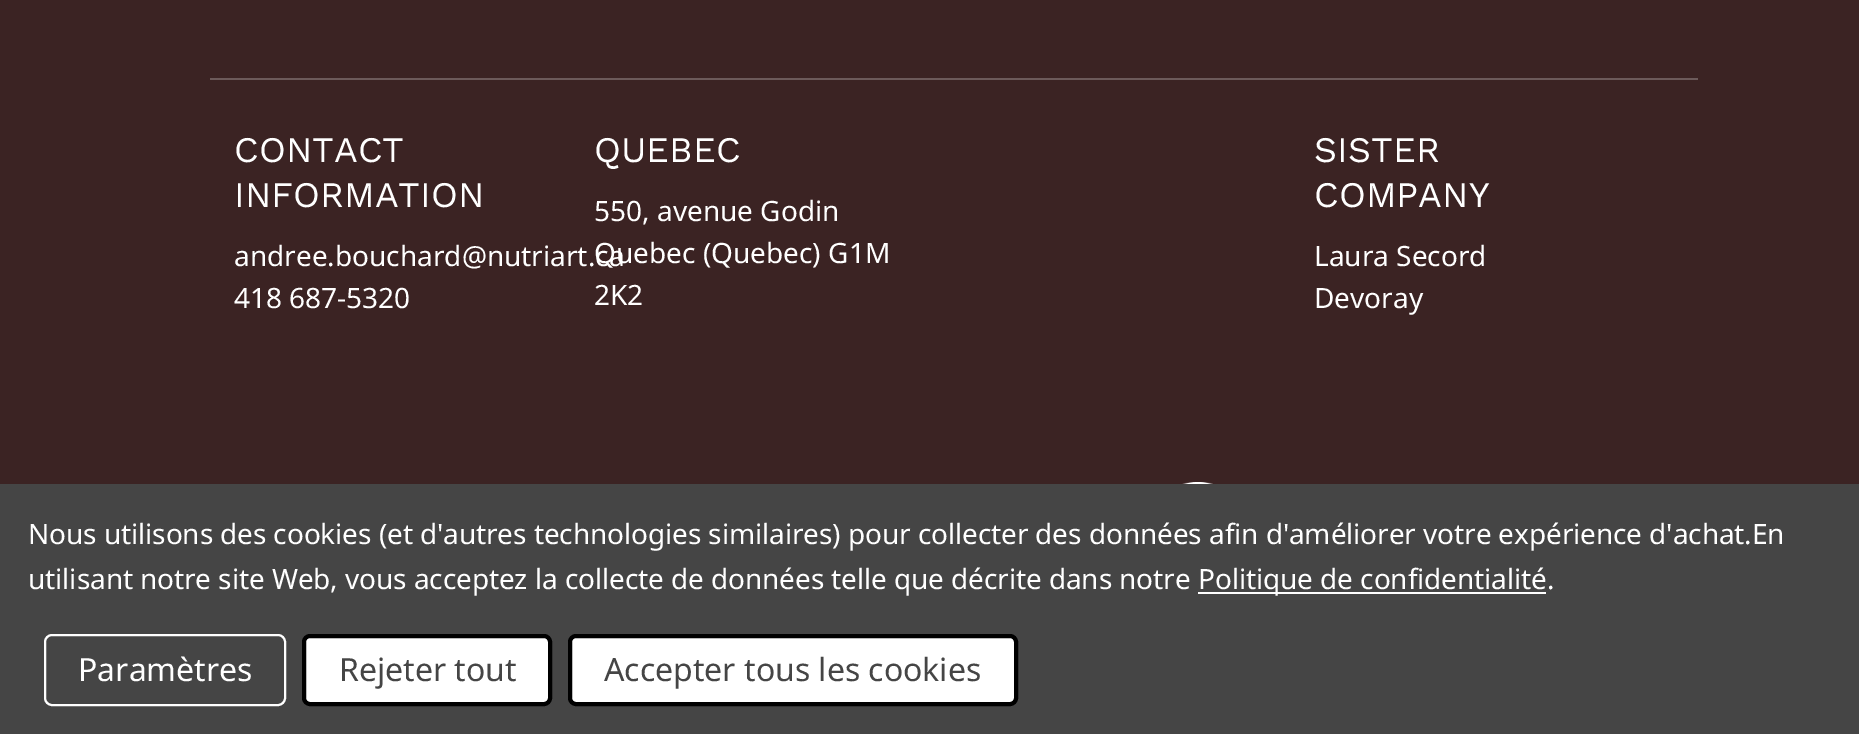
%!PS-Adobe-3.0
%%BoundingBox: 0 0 1859 734
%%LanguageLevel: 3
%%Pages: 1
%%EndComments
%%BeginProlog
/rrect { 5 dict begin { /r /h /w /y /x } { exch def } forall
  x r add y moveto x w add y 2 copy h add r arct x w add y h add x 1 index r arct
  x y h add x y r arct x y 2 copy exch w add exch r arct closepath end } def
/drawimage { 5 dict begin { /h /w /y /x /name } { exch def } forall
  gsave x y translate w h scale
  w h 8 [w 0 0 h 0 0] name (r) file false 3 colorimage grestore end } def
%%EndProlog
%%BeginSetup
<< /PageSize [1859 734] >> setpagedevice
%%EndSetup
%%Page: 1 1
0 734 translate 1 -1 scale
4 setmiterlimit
0.231 0.137 0.137 setrgbcolor
0 0 1859 734 rectfill
0.424 0.353 0.353 setrgbcolor
210 78 1488 2 rectfill
(images/1.raw) 1182 482 31 2 drawimage
0.271 setgray
0 484 1859 250 rectfill
1 setgray
1198 592 348 2 rectfill
2 setlinewidth
45 635 240 70 7 rrect stroke
304 636 246 68 6 rrect gsave fill grestore
0 setgray
4 setlinewidth
stroke
1 setgray
570 636 446 68 6 rrect gsave fill grestore
0 setgray
stroke
/WorkSans-Regular [36 0 0 -36 0 0] selectfont
1 setgray
234 162 moveto (CONTACT) show
234 207 moveto (INFORMATION) show
/NotoSans-Regular [28 0 0 -28 0 0] selectfont
234 266 moveto (andree.bouchard@nutriart.ca) show
234 308 moveto (418 687-5320) show
/WorkSans-Regular [36 0 0 -36 0 0] selectfont
594 162 moveto (QUEBEC) show
/NotoSans-Regular [28 0 0 -28 0 0] selectfont
594 221 moveto (550, avenue Godin) show
594 263 moveto (Quebec \(Quebec\) G1M) show
594 305 moveto (2K2) show
/WorkSans-Regular [36 0 0 -36 0 0] selectfont
1314 162 moveto (SISTER) show
1314 207 moveto (COMPANY) show
/NotoSans-Regular [28 0 0 -28 0 0] selectfont
1314 266 moveto (Laura Secord) show
1314 308 moveto (Devoray) show
28 544 moveto -0.1 0 (Nous utilisons des cookies \(et d'autres technologies similaires\) pour collecter des données afin d'améliorer votre expérience d'achat.En) ashow
28 589 moveto -0.1 0 (utilisant notre site Web, vous acceptez la collecte de données telle que décrite dans notre) ashow
1198 589 moveto -0.1 0 (Politique de confidentialité.) ashow
/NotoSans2-Regular [32 0 0 -32 0 0] selectfont
78 681 moveto (Paramètres) show
0.271 setgray
339 681 moveto (Rejeter tout) show
604 681 moveto (Accepter tous les cookies) show
showpage
%%EOF
